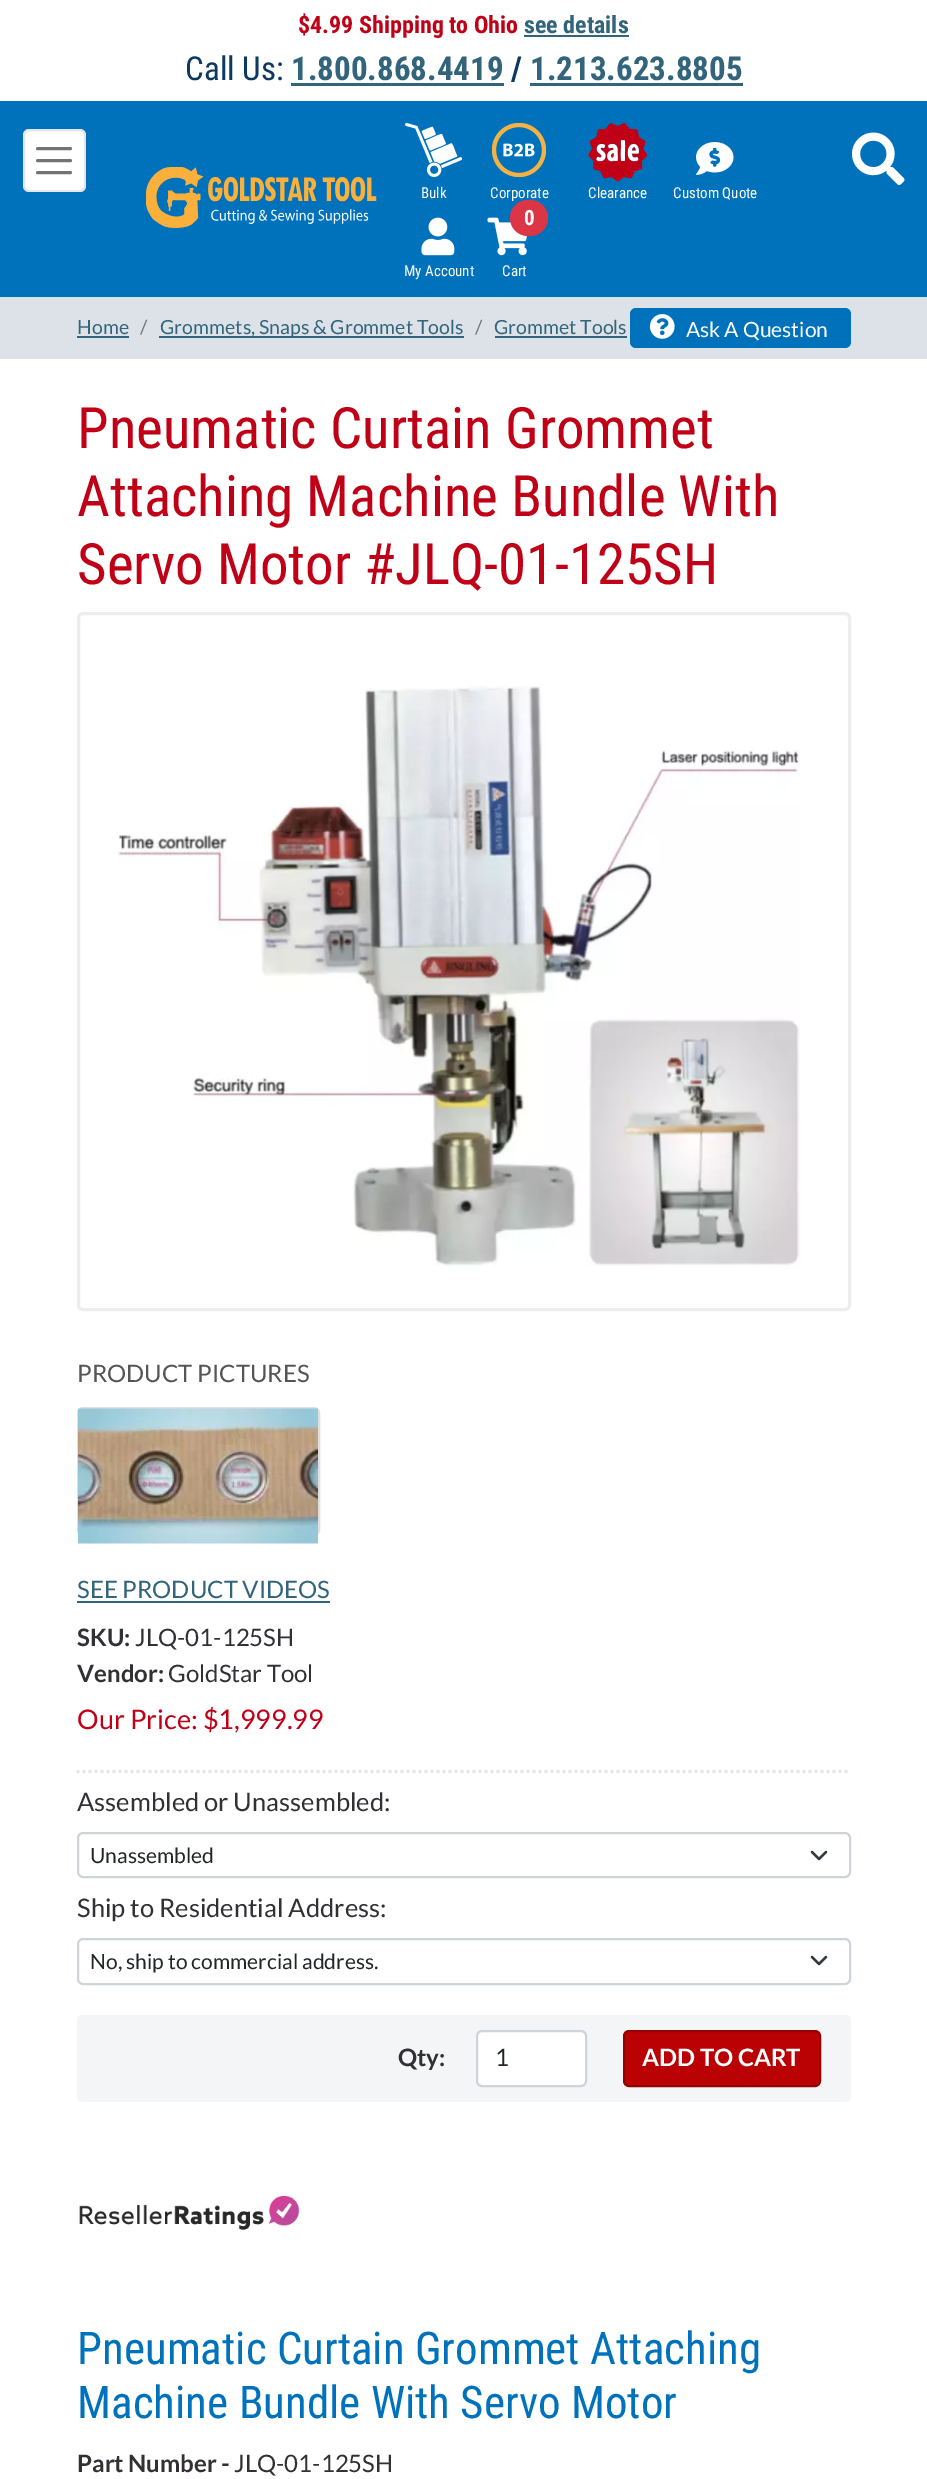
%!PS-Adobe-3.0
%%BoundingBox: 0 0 927 2479
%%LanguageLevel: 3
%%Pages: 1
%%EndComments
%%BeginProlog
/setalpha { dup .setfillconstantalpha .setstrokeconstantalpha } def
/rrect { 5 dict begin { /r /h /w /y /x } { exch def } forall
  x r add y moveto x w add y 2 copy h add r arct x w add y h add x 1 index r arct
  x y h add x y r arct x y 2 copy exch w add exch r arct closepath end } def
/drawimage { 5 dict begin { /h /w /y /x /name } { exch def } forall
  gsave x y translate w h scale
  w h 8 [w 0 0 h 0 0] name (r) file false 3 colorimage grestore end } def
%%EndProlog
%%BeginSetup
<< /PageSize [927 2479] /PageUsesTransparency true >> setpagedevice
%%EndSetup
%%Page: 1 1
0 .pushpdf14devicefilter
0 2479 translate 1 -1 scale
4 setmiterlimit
1 setgray
0 0 927 2479 rectfill
0.196 0.396 0.486 setrgbcolor
524 35 105 2 rectfill
291 83 213 3 rectfill
530 83 213 3 rectfill
0 0.447 0.733 setrgbcolor
0 101 927 196 rectfill
1 setgray
23 129 63 63 6 rrect fill
0.1 setalpha
0 setgray
2 setlinewidth
24 130 61 61 5 rrect stroke
1 setalpha
0.451 setgray
3 setlinewidth
1 setlinecap
newpath 37.5 148.5 moveto 70.5 148.5 lineto 37.5 160.5 moveto 70.5 160.5 lineto 37.5 172.5 moveto 70.5 172.5 lineto stroke
(images/1.raw) 852 132 53 53 drawimage
(images/2.raw) 146 167 231 61 drawimage
(images/3.raw) 405 123 57 54 drawimage
(images/4.raw) 492 123 54 54 drawimage
(images/5.raw) 588 123 59 59 drawimage
(images/6.raw) 696 142 38 33 drawimage
(images/7.raw) 421 217 34 39 drawimage
(images/8.raw) 487 217 41 39 drawimage
0.867 0.886 0.91 setrgbcolor
0 297 927 62 rectfill
0.196 0.396 0.486 setrgbcolor
77 336 52 2 rectfill
159 336 305 2 rectfill
495 336 132 2 rectfill
0 0.447 0.733 setrgbcolor
630 308 221 40 6 rrect fill
(images/9.raw) 649 314 26 25 drawimage
0.929 setgray
0 setlinecap
78.5 613.5 771 696 4.5 rrect stroke
(images/10.raw) 117 685 683 582 drawimage
0.875 setgray
2 setlinewidth
78 1408 241 127 5 rrect stroke
(images/11.raw) 78 1408 240 136 drawimage
0.196 0.396 0.486 setrgbcolor
77 1601 253 2 rectfill
0.898 setgray
3 setlinewidth
[3 3] 0 setdash
newpath 76.5 1771.5 moveto 850.5 1771.5 lineto stroke
0.204 0.227 0.251 setrgbcolor
2.2 setlinewidth
1 setlinecap
1 setlinejoin
[] 0 setdash
newpath 812 1852 moveto 819 1859 lineto 826 1852 lineto stroke
0.808 0.831 0.855 setrgbcolor
2 setlinewidth
0 setlinecap
0 setlinejoin
78 1833 772 44 5 rrect stroke
0.204 0.227 0.251 setrgbcolor
2.2 setlinewidth
1 setlinecap
1 setlinejoin
newpath 812 1957 moveto 819 1964 lineto 826 1957 lineto stroke
0.808 0.831 0.855 setrgbcolor
2 setlinewidth
0 setlinecap
0 setlinejoin
78 1939 772 45 5 rrect stroke
0.953 0.961 0.965 setrgbcolor
77 2015 774 87 5 rrect fill
1 setgray
477 2031 109 55 5 rrect gsave fill grestore
0.808 0.831 0.855 setrgbcolor
stroke
0.729 0.008 0.016 setrgbcolor
624 2031 196 55 5 rrect gsave fill grestore
0.584 0.004 0.004 setrgbcolor
stroke
(images/12.raw) 79 2196 221 34 drawimage
/RobotoCondensed-Bold [24 0 0 -24 0 0] selectfont
0.749 0 0.086 setrgbcolor
298 33 moveto ($4.99 Shipping to Ohio) show
0.196 0.396 0.486 setrgbcolor
524 33 moveto (see details) show
/RobotoCondensed-Regular [33 0 0 -33 0 0] selectfont
0.047 0.22 0.38 setrgbcolor
185 80 moveto (Call Us:) show
/RobotoCondensed-Bold [33 0 0 -33 0 0] selectfont
0.196 0.396 0.486 setrgbcolor
291 80 moveto (1.800.868.4419) show
0.047 0.22 0.38 setrgbcolor
511 80 moveto (/) show
0.196 0.396 0.486 setrgbcolor
530 80 moveto (1.213.623.8805) show
/RobotoCondensed-Regular [15 0 0 -15 0 0] selectfont
1 setgray
421 198 moveto (Bulk) show
490 198 moveto (Corporate) show
588 198 moveto (Clearance) show
673 198 moveto (Custom Quote) show
404 276 moveto (My Account) show
0.863 0.208 0.271 setrgbcolor
510 200 38 36 18 rrect fill
/RobotoCondensed-Bold [21 0 0 -21 0 0] selectfont
1 setgray
524 225 moveto (0) show
/RobotoCondensed-Regular [15 0 0 -15 0 0] selectfont
502 276 moveto (Cart) show
/Lato-Regular [19.5 0 0 -19.5 0 0] selectfont
0.196 0.396 0.486 setrgbcolor
77 334 moveto (Home) show
0.424 0.459 0.49 setrgbcolor
140 334 moveto (/) show
0.196 0.396 0.486 setrgbcolor
160 334 moveto (Grommets, Snaps & Grommet Tools) show
0.424 0.459 0.49 setrgbcolor
475 334 moveto (/) show
0.196 0.396 0.486 setrgbcolor
494 334 moveto (Grommet Tools) show
/Lato-Regular [21 0 0 -21 0 0] selectfont
1 setgray
686 337 moveto (Ask A Question) show
/RobotoCondensed-Regular [57 0 0 -57 0 0] selectfont
0.749 0 0.086 setrgbcolor
77 448 moveto (Pneumatic Curtain Grommet) show
77 516 moveto (Attaching Machine Bundle With) show
77 584 moveto (Servo Motor #JLQ-01-125SH) show
/Lato-Regular [24 0 0 -24 0 0] selectfont
0.333 setgray
77 1382 moveto (PRODUCT PICTURES) show
0.196 0.396 0.486 setrgbcolor
77 1598 moveto (SEE PRODUCT VIDEOS) show
/Lato-Bold [24 0 0 -24 0 0] selectfont
0.196 0.188 0.208 setrgbcolor
77 1646 moveto (SKU:) show
/Lato-Regular [24 0 0 -24 0 0] selectfont
135 1646 moveto (JLQ-01-125SH) show
/Lato-Bold [24 0 0 -24 0 0] selectfont
77 1682 moveto (Vendor:) show
/Lato-Regular [24 0 0 -24 0 0] selectfont
168 1682 moveto (GoldStar Tool) show
/Lato-Regular [27 0 0 -27 0 0] selectfont
0.749 0 0.086 setrgbcolor
77 1729 moveto (Our Price: $1,999.99) show
/Lato-Regular [25.5 0 0 -25.5 0 0] selectfont
0.196 0.188 0.208 setrgbcolor
77 1811 moveto (Assembled or Unassembled:) show
/Lato-Regular [21 0 0 -21 0 0] selectfont
0.129 0.145 0.161 setrgbcolor
90 1863 moveto (Unassembled) show
/Lato-Regular [25.5 0 0 -25.5 0 0] selectfont
0.196 0.188 0.208 setrgbcolor
77 1917 moveto (Ship to Residential Address:) show
/Lato-Regular [21 0 0 -21 0 0] selectfont
0.129 0.145 0.161 setrgbcolor
90 1969 moveto (No, ship to commercial address.) show
/Lato-Bold [24 0 0 -24 0 0] selectfont
0.196 0.188 0.208 setrgbcolor
398 2066 moveto (Qty:) show
/Lato-Regular [24 0 0 -24 0 0] selectfont
0.129 0.145 0.161 setrgbcolor
495 2066 moveto (1) show
/Lato-Bold [24 0 0 -24 0 0] selectfont
1 setgray
642 2066 moveto (ADD TO CART) show
/RobotoCondensed-Regular [45 0 0 -45 0 0] selectfont
0 0.447 0.733 setrgbcolor
77 2364 moveto (Pneumatic Curtain Grommet Attaching) show
77 2418 moveto (Machine Bundle With Servo Motor) show
/Lato-Bold [24 0 0 -24 0 0] selectfont
0.196 0.188 0.208 setrgbcolor
77 2472 moveto (Part Number -) show
/Lato-Regular [24 0 0 -24 0 0] selectfont
234 2472 moveto (JLQ-01-125SH) show
.poppdf14devicefilter showpage
%%EOF
